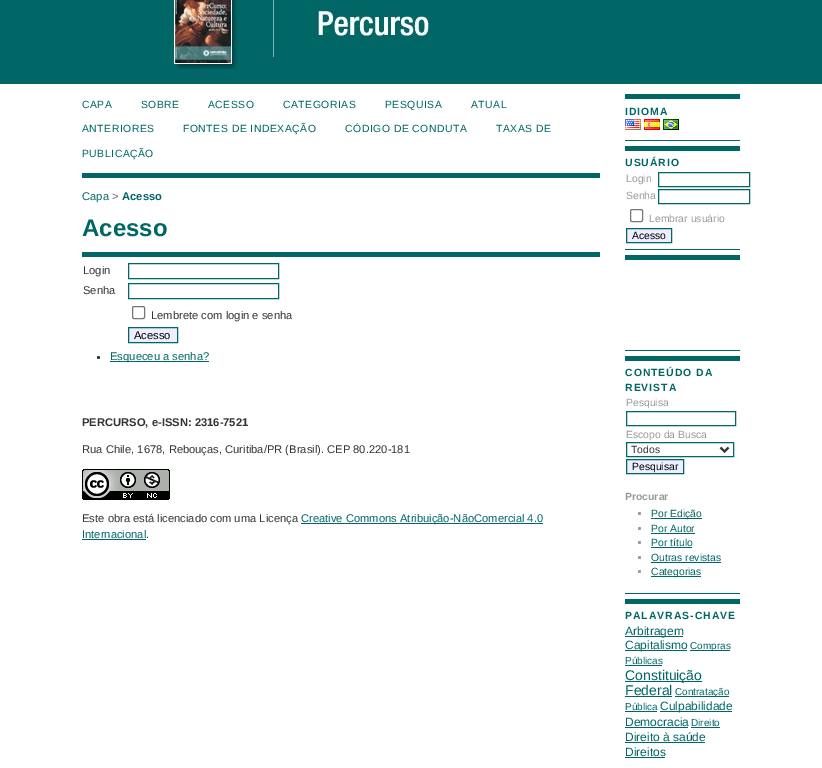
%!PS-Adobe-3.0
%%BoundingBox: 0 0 822 768
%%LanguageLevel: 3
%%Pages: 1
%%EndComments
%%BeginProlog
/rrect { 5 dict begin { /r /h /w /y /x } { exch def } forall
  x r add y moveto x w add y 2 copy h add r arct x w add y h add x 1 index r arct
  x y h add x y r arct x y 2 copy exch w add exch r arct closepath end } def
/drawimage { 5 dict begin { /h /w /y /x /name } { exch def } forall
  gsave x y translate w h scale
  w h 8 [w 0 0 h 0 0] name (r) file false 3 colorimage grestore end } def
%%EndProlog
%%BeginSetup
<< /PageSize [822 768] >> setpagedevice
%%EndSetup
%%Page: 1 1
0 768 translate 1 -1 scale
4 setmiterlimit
1 setgray
0 0 822 768 rectfill
0 0.4 0.4 setrgbcolor
0 0 822 84 rectfill
(images/1.raw) 168 0 266 70 drawimage
82 173 518 5 rectfill
82 252 518 5 rectfill
128.5 263.5 150 15 rectstroke
128.5 283.5 150 15 rectstroke
0.463 setgray
132.5 306.5 12 12 1.5 rrect stroke
0.933 0.933 1 setrgbcolor
newpath 128.5 327.5 moveto 177.5 327.5 lineto 177.5 342.5 lineto 128.5 342.5 lineto closepath gsave fill grestore
0 0.4 0.4 setrgbcolor
stroke
0.2 setgray
newpath 98.5 357.5 1.5 0 360 arc closepath fill
0 0.4 0.4 setrgbcolor
110 361 99 1 rectfill
(images/2.raw) 82 469 88 31 drawimage
301 523 242 1 rectfill
82 539 64 1 rectfill
625 94 115 5 rectfill
625 140 115 1 rectfill
(images/3.raw) 625 119 16 11 drawimage
(images/4.raw) 644 119 16 11 drawimage
(images/5.raw) 663 119 16 11 drawimage
625 146 115 5 rectfill
625 249 115 1 rectfill
658.5 172.5 91 14 rectstroke
658.5 189.5 91 14 rectstroke
0.463 setgray
630.5 209.5 12 12 1.5 rrect stroke
0.933 0.933 1 setrgbcolor
newpath 626.5 228.5 moveto 671.5 228.5 lineto 671.5 242.5 lineto 626.5 242.5 lineto closepath gsave fill grestore
0 0.4 0.4 setrgbcolor
stroke
625 255 115 5 rectfill
625 350 115 1 rectfill
625 356 115 5 rectfill
625 593 115 1 rectfill
626.5 411.5 109 14 rectstroke
626.5 442.5 107 14 rectstroke
0.2 setgray
2 setlinewidth
newpath 720.5 447.5 moveto 724.5 451.5 lineto 728.5 447.5 lineto stroke
0.933 0.933 1 setrgbcolor
newpath 626.5 459.5 moveto 683.5 459.5 lineto 683.5 473.5 lineto 626.5 473.5 lineto closepath gsave fill grestore
0 0.4 0.4 setrgbcolor
1 setlinewidth
stroke
0.6 setgray
newpath 639.5 513.5 1.5 0 360 arc closepath fill
0 0.4 0.4 setrgbcolor
651 518 51 1 rectfill
0.6 setgray
newpath 639.5 528.5 1.5 0 360 arc closepath fill
0 0.4 0.4 setrgbcolor
651 533 44 1 rectfill
0.6 setgray
newpath 639.5 542.5 1.5 0 360 arc closepath fill
0 0.4 0.4 setrgbcolor
651 547 41 1 rectfill
0.6 setgray
newpath 639.5 557.5 1.5 0 360 arc closepath fill
0 0.4 0.4 setrgbcolor
651 562 70 1 rectfill
0.6 setgray
newpath 639.5 571.5 1.5 0 360 arc closepath fill
0 0.4 0.4 setrgbcolor
651 576 50 1 rectfill
625 599 115 5 rectfill
625 636 58 1 rectfill
625 650 62 1 rectfill
690 650 40 1 rectfill
625 665 37 1 rectfill
625 681 77 1 rectfill
625 696 47 1 rectfill
675 696 54 1 rectfill
625 711 32 1 rectfill
660 711 72 1 rectfill
625 727 63 1 rectfill
691 727 29 1 rectfill
625 742 80 1 rectfill
625 757 40 1 rectfill
/LiberationSans-Regular [10.4 0 0 -10.4 0 0] selectfont
82 108 moveto 0.5 0 (CAPA) ashow
141 108 moveto 0.5 0 (SOBRE) ashow
208 108 moveto 0.5 0 (ACESSO) ashow
283 108 moveto 0.5 0 (CATEGORIAS) ashow
385 108 moveto 0.5 0 (PESQUISA) ashow
471 108 moveto 0.5 0 (ATUAL) ashow
82 132 moveto 0.5 0 (ANTERIORES) ashow
183 132 moveto 0.5 0 (FONTES DE INDEXAÇÃO) ashow
345 132 moveto 0.5 0 (CÓDIGO DE CONDUTA) ashow
496 132 moveto 0.5 0 (TAXAS DE) ashow
82 157 moveto 0.5 0 (PUBLICAÇÃO) ashow
/LiberationSans-Regular [11.2 0 0 -11.2 0 0] selectfont
82 200 moveto (Capa) show
0.4 setgray
112 200 moveto (>) show
/LiberationSans-Bold [11.2 0 0 -11.2 0 0] selectfont
0 0.4 0.4 setrgbcolor
122 200 moveto (Acesso) show
/LiberationSans-Bold [24 0 0 -24 0 0] selectfont
82 236 moveto (Acesso) show
/LiberationSans-Regular [11.2 0 0 -11.2 0 0] selectfont
0.2 setgray
83 274 moveto (Login) show
83 294 moveto (Senha) show
151 319 moveto (Lembrete com login e senha) show
0 setgray
134 339 moveto (Acesso) show
0 0.4 0.4 setrgbcolor
110 360 moveto (Esqueceu a senha?) show
/LiberationSans-Bold [11.2 0 0 -11.2 0 0] selectfont
0.2 setgray
82 426 moveto (PERCURSO, e-ISSN: 2316-7521) show
/LiberationSans-Regular [11.2 0 0 -11.2 0 0] selectfont
82 453 moveto (Rua Chile, 1678, Rebouças, Curitiba/PR \(Brasil\). CEP 80.220-181) show
82 522 moveto (Este obra está licenciado com uma Licença) show
0 0.4 0.4 setrgbcolor
301 522 moveto (Creative Commons Atribuição-NãoComercial 4.0) show
82 538 moveto (Internacional) show
0.2 setgray
146 538 moveto (.) show
/LiberationSans-Bold [10.4 0 0 -10.4 0 0] selectfont
0 0.4 0.4 setrgbcolor
625 115 moveto 1 0 (IDIOMA) ashow
625 166 moveto 1 0 (USUÁRIO) ashow
/LiberationSans-Regular [10.4 0 0 -10.4 0 0] selectfont
0.6 setgray
626 182 moveto (Login) show
626 199 moveto (Senha) show
649 222 moveto (Lembrar usuário) show
0 setgray
632 239 moveto (Acesso) show
/LiberationSans-Bold [10.4 0 0 -10.4 0 0] selectfont
0 0.4 0.4 setrgbcolor
625 376 moveto 1 0 (CONTEÚDO DA) ashow
625 391 moveto 1 0 (REVISTA) ashow
/LiberationSans-Regular [10.4 0 0 -10.4 0 0] selectfont
0.6 setgray
626 406 moveto (Pesquisa) show
626 438 moveto (Escopo da Busca) show
0.2 setgray
631 453 moveto (Todos) show
0 setgray
632 470 moveto (Pesquisar) show
/LiberationSans-Bold [10.4 0 0 -10.4 0 0] selectfont
0.6 setgray
625 500 moveto (Procurar) show
/LiberationSans-Regular [10.4 0 0 -10.4 0 0] selectfont
0 0.4 0.4 setrgbcolor
651 517 moveto (Por Edição) show
651 532 moveto (Por Autor) show
651 546 moveto (Por título) show
651 561 moveto (Outras revistas) show
651 575 moveto (Categorias) show
/LiberationSans-Bold [10.4 0 0 -10.4 0 0] selectfont
625 619 moveto 1 0 (PALAVRAS-CHAVE) ashow
/LiberationSans-Regular [12 0 0 -12 0 0] selectfont
625 635 moveto (Arbitragem) show
625 649 moveto (Capitalismo) show
/LiberationSans-Regular [10 0 0 -10 0 0] selectfont
690 649 moveto (Compras) show
625 664 moveto (Públicas) show
/LiberationSans-Regular [14 0 0 -14 0 0] selectfont
625 680 moveto (Constituição) show
625 695 moveto (Federal) show
/LiberationSans-Regular [10 0 0 -10 0 0] selectfont
675 695 moveto (Contratação) show
625 710 moveto (Pública) show
/LiberationSans-Regular [12 0 0 -12 0 0] selectfont
660 710 moveto (Culpabilidade) show
625 726 moveto (Democracia) show
/LiberationSans-Regular [10 0 0 -10 0 0] selectfont
691 726 moveto (Direito) show
/LiberationSans-Regular [12 0 0 -12 0 0] selectfont
625 741 moveto (Direito à saúde) show
625 756 moveto (Direitos) show
showpage
%%EOF
